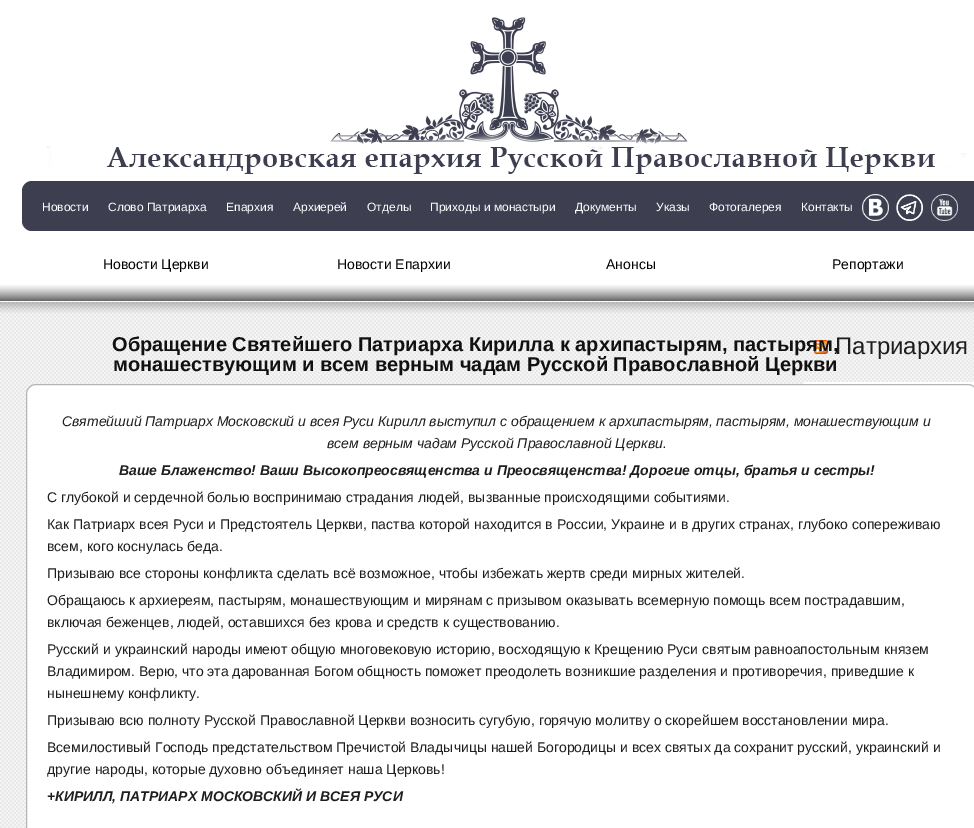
%!PS-Adobe-3.0
%%BoundingBox: 0 0 974 828
%%LanguageLevel: 3
%%Pages: 1
%%EndComments
%%BeginProlog
/rrect { 5 dict begin { /r /h /w /y /x } { exch def } forall
  x r add y moveto x w add y 2 copy h add r arct x w add y h add x 1 index r arct
  x y h add x y r arct x y 2 copy exch w add exch r arct closepath end } def
/drawimage { 5 dict begin { /h /w /y /x /name } { exch def } forall
  gsave x y translate w h scale
  w h 8 [w 0 0 h 0 0] name (r) file false 3 colorimage grestore end } def
%%EndProlog
%%BeginSetup
<< /PageSize [974 828] >> setpagedevice
%%EndSetup
%%Page: 1 1
0 828 translate 1 -1 scale
4 setmiterlimit
1 setgray
0 0 974 828 rectfill
(images/1.raw) 47 17 920 157 drawimage
0.239 0.247 0.318 setrgbcolor
22 181 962 50 10 rrect fill
(images/2.raw) 862 194 27 27 drawimage
(images/3.raw) 896 194 27 27 drawimage
(images/4.raw) 931 194 27 27 drawimage
(images/5.raw) 0 285 974 16 drawimage
(images/6.raw) 0 302 974 526 drawimage
(images/7.raw) 0 302 974 11 drawimage
1 setgray
804 382 170 4 rectfill
26.5 384.5 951 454 9.5 rrect gsave fill grestore
0.71 setgray
stroke
(images/8.raw) 814 340 14 14 drawimage
/LiberationSans-Regular [12 0 0 -12 0 0] selectfont
1 setgray
42 211 moveto (Новости) show
108 211 moveto (Слово Патриарха) show
226 211 moveto (Епархия) show
293 211 moveto (Архиерей) show
367 211 moveto (Отделы) show
430 211 moveto (Приходы и монастыри) show
575 211 moveto (Документы) show
656 211 moveto (Указы) show
709 211 moveto (Фотогалерея) show
801 211 moveto (Контакты) show
/LiberationSans-Regular [14 0 0 -14 0 0] selectfont
0 setgray
103 269 moveto (Новости Церкви) show
337 269 moveto (Новости Епархии) show
606 269 moveto (Анонсы) show
832 269 moveto (Репортажи) show
/LiberationSans-Bold [20 0 0 -20 0 0] selectfont
0.067 setgray
113 371 moveto (монашествующим и всем верным чадам Русской Православной Церкви) show
/LiberationSans-Italic [14 0 0 -14 0 0] selectfont
0.118 setgray
62 426 moveto (Святейший Патриарх Московский и всея Руси Кирилл выступил с обращением к архипастырям, пастырям, монашествующим и) show
327 448 moveto (всем верным чадам Русской Православной Церкви.) show
/LiberationSans-BoldItalic [14 0 0 -14 0 0] selectfont
119 475 moveto (Ваше Блаженство! Ваши Высокопреосвященства и Преосвященства! Дорогие отцы, братья и сестры!) show
/LiberationSans-Regular [14 0 0 -14 0 0] selectfont
47 502 moveto (С глубокой и сердечной болью воспринимаю страдания людей, вызванные происходящими событиями.) show
47 529 moveto (Как Патриарх всея Руси и Предстоятель Церкви, паства которой находится в России, Украине и в других странах, глубоко сопереживаю) show
47 551 moveto (всем, кого коснулась беда.) show
47 578 moveto (Призываю все стороны конфликта сделать всё возможное, чтобы избежать жертв среди мирных жителей.) show
47 605 moveto (Обращаюсь к архиереям, пастырям, монашествующим и мирянам с призывом оказывать всемерную помощь всем пострадавшим,) show
47 627 moveto (включая беженцев, людей, оставшихся без крова и средств к существованию.) show
47 654 moveto (Русский и украинский народы имеют общую многовековую историю, восходящую к Крещению Руси святым равноапостольным князем) show
47 676 moveto (Владимиром. Верю, что эта дарованная Богом общность поможет преодолеть возникшие разделения и противоречия, приведшие к) show
47 698 moveto (нынешнему конфликту.) show
47 725 moveto (Призываю всю полноту Русской Православной Церкви возносить сугубую, горячую молитву о скорейшем восстановлении мира.) show
47 752 moveto (Всемилостивый Господь предстательством Пречистой Владычицы нашей Богородицы и всех святых да сохранит русский, украинский и) show
47 774 moveto (другие народы, которые духовно объединяет наша Церковь!) show
/LiberationSans-BoldItalic [14 0 0 -14 0 0] selectfont
47 801 moveto (+КИРИЛЛ, ПАТРИАРХ МОСКОВСКИЙ И ВСЕЯ РУСИ) show
/LiberationSans-Regular [24 0 0 -24 0 0] selectfont
835 354 moveto (Патриархия) show
/LiberationSans-Bold [20 0 0 -20 0 0] selectfont
0.067 setgray
112 351 moveto (Обращение Святейшего Патриарха Кирилла к архипастырям, пастырям,) show
showpage
%%EOF
